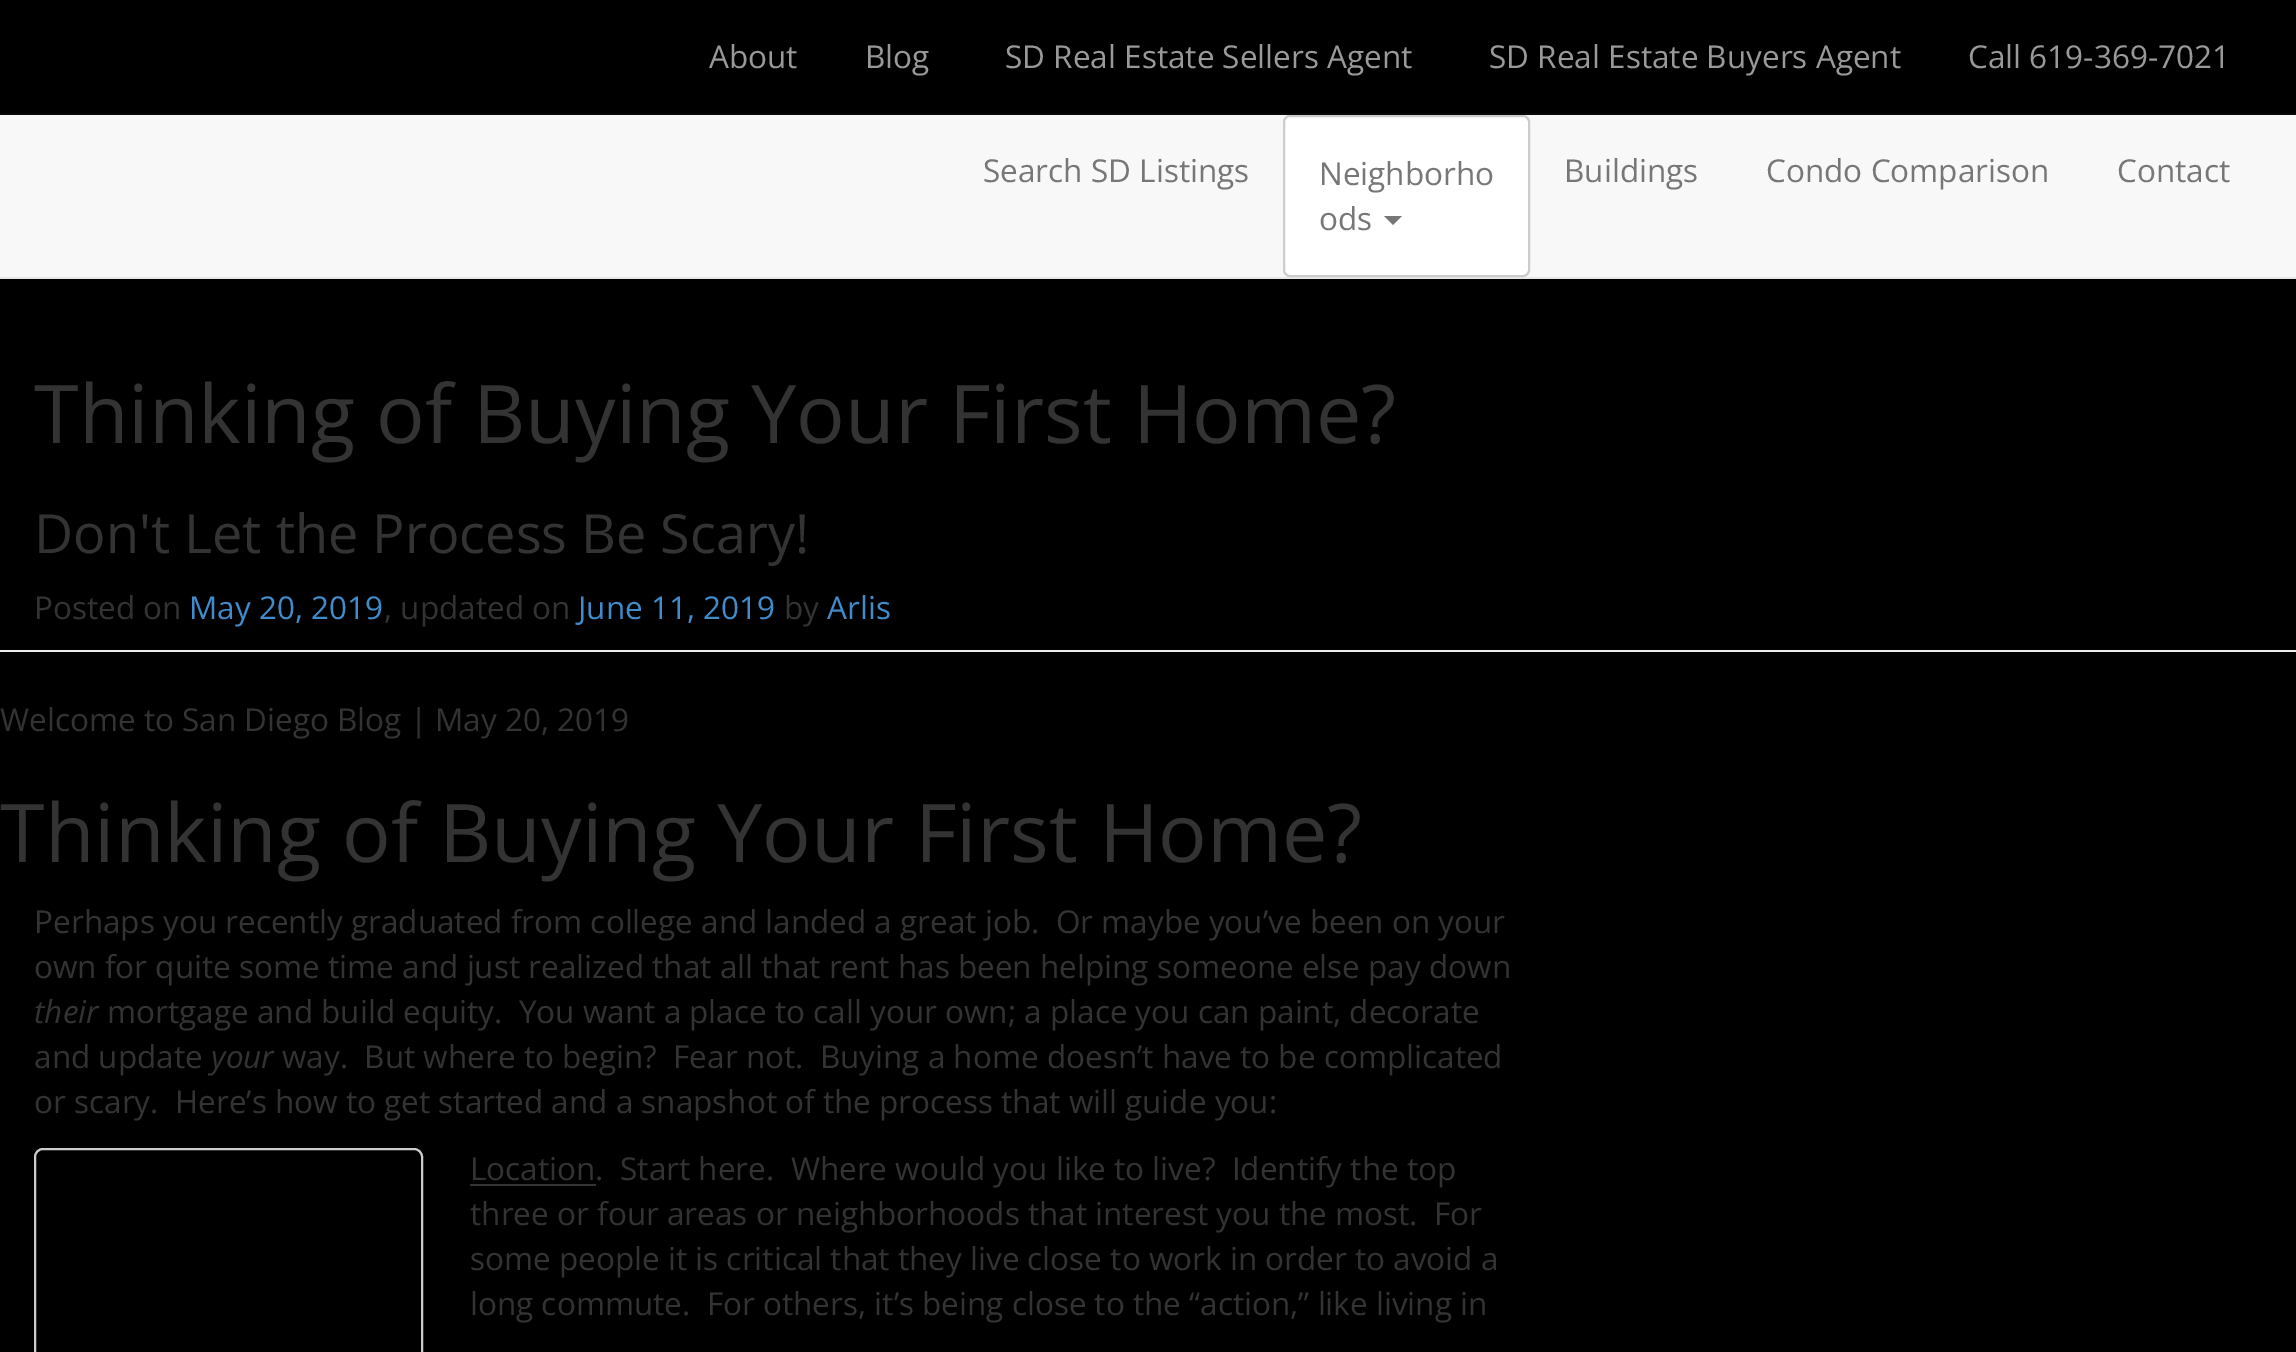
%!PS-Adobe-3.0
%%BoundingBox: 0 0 2296 1352
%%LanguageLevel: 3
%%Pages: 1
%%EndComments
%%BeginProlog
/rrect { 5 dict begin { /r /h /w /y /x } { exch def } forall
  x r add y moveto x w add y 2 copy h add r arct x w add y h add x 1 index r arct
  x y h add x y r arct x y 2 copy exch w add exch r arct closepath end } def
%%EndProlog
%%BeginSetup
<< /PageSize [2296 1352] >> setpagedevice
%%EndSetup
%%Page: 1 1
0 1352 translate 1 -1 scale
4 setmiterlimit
0 setgray
0 0 2296 1352 rectfill
0.031 setgray
0 113 2296 2 rectfill
0.973 setgray
0 115 2296 162 rectfill
0.906 setgray
0 277 2296 2 rectfill
1 setgray
1284 116 245 160 6 rrect gsave fill grestore
0.8 setgray
2 setlinewidth
stroke
0.467 setgray
newpath 1384 216 moveto 1402 216 lineto 1393 225 lineto closepath fill
0.933 setgray
0 650 2296 2 rectfill
0.8 setgray
35 1149 387 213 8 rrect stroke
0.2 setgray
470 1184 126 2 rectfill
/OpenSans-Regular [31.5 0 0 -31.5 0 0] selectfont
0.6 setgray
709 68 moveto (About) show
865 68 moveto (Blog) show
1005 68 moveto (SD Real Estate Sellers Agent) show
1489 68 moveto (SD Real Estate Buyers Agent) show
1968 68 moveto (Call 619-369-7021) show
0.467 setgray
983 182 moveto (Search SD Listings) show
1319 185 moveto (Neighborho) show
1319 230 moveto (ods) show
1564 182 moveto (Buildings) show
1766 182 moveto (Condo Comparison) show
2117 182 moveto (Contact) show
/OpenSans-Regular [81 0 0 -81 0 0] selectfont
0.2 setgray
34 443 moveto (Thinking of Buying Your First Home?) show
/OpenSans-Regular [54 0 0 -54 0 0] selectfont
34 553 moveto (Don't Let the Process Be Scary!) show
/OpenSans-Regular [31.5 0 0 -31.5 0 0] selectfont
34 619 moveto (Posted on) show
0.259 0.545 0.792 setrgbcolor
189 619 moveto (May 20, 2019) show
0.2 setgray
384 619 moveto (, updated on) show
0.259 0.545 0.792 setrgbcolor
578 619 moveto (June 11, 2019) show
0.2 setgray
784 619 moveto (by) show
0.259 0.545 0.792 setrgbcolor
827 619 moveto (Arlis) show
0.2 setgray
0 731 moveto (Welcome to San Diego Blog | May 20, 2019) show
/OpenSans-Regular [81 0 0 -81 0 0] selectfont
0 862 moveto (Thinking of Buying Your First Home?) show
/OpenSans-Regular [31.5 0 0 -31.5 0 0] selectfont
34 933 moveto (Perhaps you recently graduated from college and landed a great job.  Or maybe you’ve been on your) show
34 978 moveto (own for quite some time and just realized that all that rent has been helping someone else pay down) show
/OpenSans-Italic [31.5 0 0 -31.5 0 0] selectfont
34 1023 moveto (their) show
/OpenSans-Regular [31.5 0 0 -31.5 0 0] selectfont
107 1023 moveto (mortgage and build equity.  You want a place to call your own; a place you can paint, decorate) show
34 1068 moveto (and update) show
/OpenSans-Italic [31.5 0 0 -31.5 0 0] selectfont
211 1068 moveto (your) show
/OpenSans-Regular [31.5 0 0 -31.5 0 0] selectfont
282 1068 moveto (way.  But where to begin?  Fear not.  Buying a home doesn’t have to be complicated) show
34 1113 moveto (or scary.  Here’s how to get started and a snapshot of the process that will guide you:) show
470 1180 moveto (Location.  Start here.  Where would you like to live?  Identify the top) show
470 1225 moveto (three or four areas or neighborhoods that interest you the most.  For) show
470 1270 moveto (some people it is critical that they live close to work in order to avoid a) show
470 1315 moveto (long commute.  For others, it’s being close to the “action,” like living in) show
showpage
%%EOF
